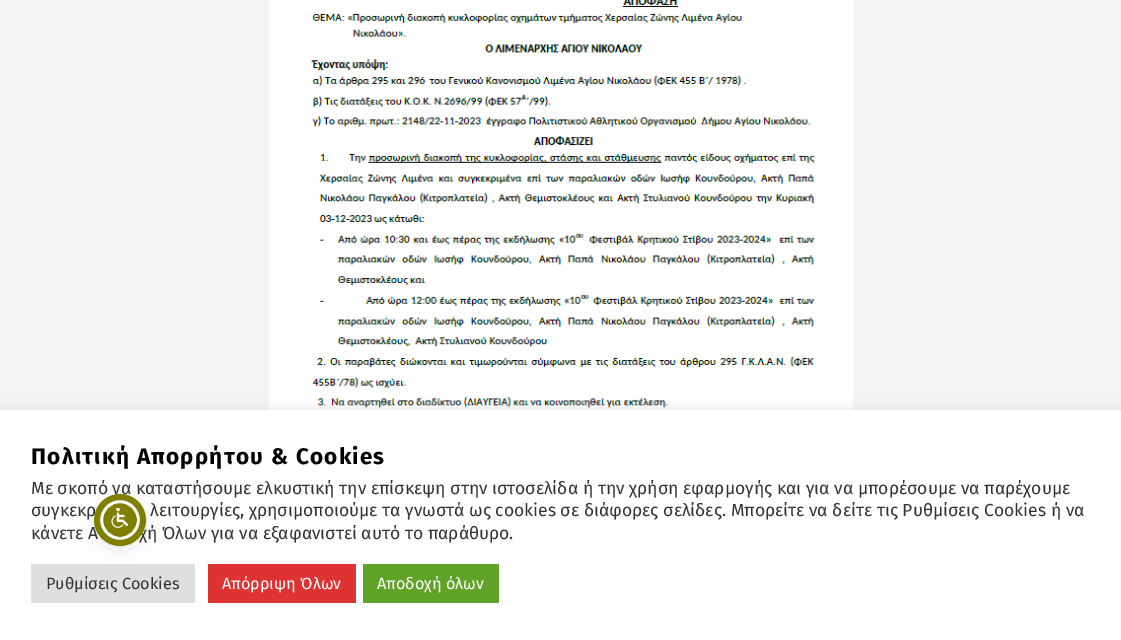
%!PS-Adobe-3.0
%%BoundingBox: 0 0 1121 640
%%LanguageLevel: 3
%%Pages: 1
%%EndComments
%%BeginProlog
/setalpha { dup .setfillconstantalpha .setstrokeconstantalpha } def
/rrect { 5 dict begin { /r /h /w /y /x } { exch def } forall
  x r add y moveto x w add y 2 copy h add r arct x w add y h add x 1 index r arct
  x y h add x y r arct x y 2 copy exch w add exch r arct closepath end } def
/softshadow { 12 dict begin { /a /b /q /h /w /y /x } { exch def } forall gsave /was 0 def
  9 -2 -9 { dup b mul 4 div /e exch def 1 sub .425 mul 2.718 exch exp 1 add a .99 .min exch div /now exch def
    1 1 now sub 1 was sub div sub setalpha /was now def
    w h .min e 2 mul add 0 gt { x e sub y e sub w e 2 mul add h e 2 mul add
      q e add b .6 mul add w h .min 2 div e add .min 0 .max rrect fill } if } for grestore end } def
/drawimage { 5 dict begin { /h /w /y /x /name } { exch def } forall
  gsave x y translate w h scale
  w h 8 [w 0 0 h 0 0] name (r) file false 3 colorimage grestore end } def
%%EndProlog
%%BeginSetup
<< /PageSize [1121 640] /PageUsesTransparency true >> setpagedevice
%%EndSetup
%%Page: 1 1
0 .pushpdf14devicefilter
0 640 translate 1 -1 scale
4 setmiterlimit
0.957 setgray
0 0 1121 640 rectfill
(images/1.raw) 269 0 585 410 drawimage
0.675 0.671 0.671 setrgbcolor
0 409 1121 230 0 6 0.3 softshadow
1 setgray
0 410 1121 230 rectfill
0.871 0.875 0.878 setrgbcolor
31 564 164 39 rectfill
0.867 0.2 0.2 setrgbcolor
208 564 148 39 rectfill
0.38 0.635 0.161 setrgbcolor
363 564 136 39 rectfill
0.365 0.392 0.58 setrgbcolor
100 503 40 40 20 2.5 0.2 softshadow
0.145 0.173 0.38 setrgbcolor
100 506 40 40 20 9.5 0.15 softshadow
/FiraSans-Bold [22.5 0 0 -22.5 0 0] selectfont
0 setgray
31 464 moveto 1.25 0 (Πολιτική Απορρήτου & Cookies) ashow
/FiraSans-Regular [17.5 0 0 -17.5 0 0] selectfont
0.2 setgray
31 494 moveto (Με σκοπό να καταστήσουμε ελκυστική την επίσκεψη στην ιστοσελίδα ή την χρήση εφαρμογής και για να μπορέσουμε να παρέχουμε) show
31 516 moveto (συγκεκρ) show
150 516 moveto (λειτουργίες, χρησιμοποιούμε τα γνωστά ως cookies σε διάφορες σελίδες. Μπορείτε να δείτε τις Ρυθμίσεις Cookies ή να) show
31 539 moveto (κάνετε Α) show
139 539 moveto (χή Όλων για να εξαφανιστεί αυτό το παράθυρο.) show
/FiraSans-Regular [16.25 0 0 -16.25 0 0] selectfont
46 589 moveto (Ρυθμίσεις Cookies) show
1 setgray
222 589 moveto (Απόρριψη Όλων) show
377 589 moveto (Αποδοχή όλων) show
0.502 0.502 0 setrgbcolor
newpath 120 520 18.5 0 360 arc closepath gsave fill grestore
1 setgray
3 setlinewidth
stroke
0.502 0.502 0 setrgbcolor
6 setlinewidth
newpath 120 520 23 0 360 arc closepath stroke
(images/2.raw) 111 508 17 20 drawimage
.poppdf14devicefilter showpage
%%EOF
